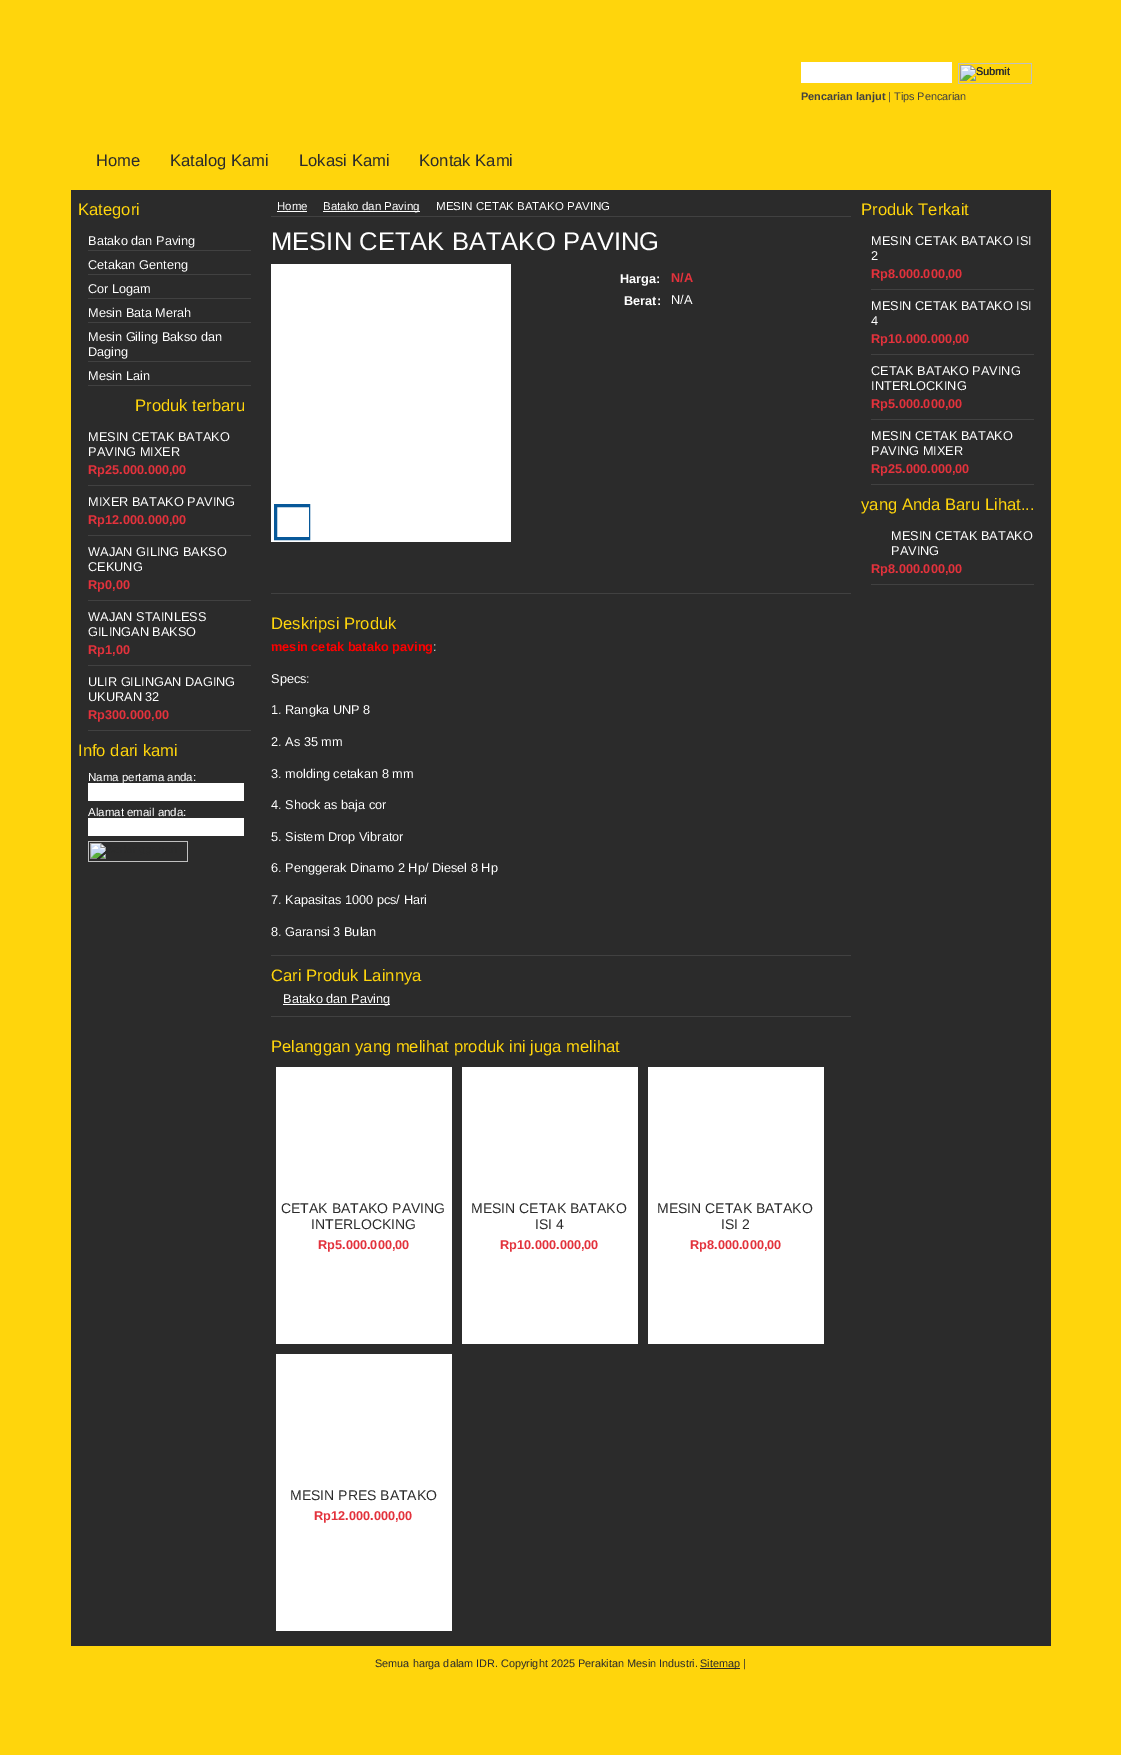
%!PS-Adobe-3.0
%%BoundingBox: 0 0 1121 1755
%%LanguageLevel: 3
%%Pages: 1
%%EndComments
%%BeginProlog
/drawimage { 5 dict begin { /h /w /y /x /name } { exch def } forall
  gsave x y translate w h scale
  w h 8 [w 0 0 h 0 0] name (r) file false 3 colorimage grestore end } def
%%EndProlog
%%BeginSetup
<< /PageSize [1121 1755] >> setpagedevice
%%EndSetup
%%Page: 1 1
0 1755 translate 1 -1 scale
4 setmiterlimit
1 0.835 0.047 setrgbcolor
0 0 1121 1755 rectfill
1 setgray
801 62 151 21 rectfill
(images/1.raw) 958 63 74 21 drawimage
0.169 setgray
71 190 980 1456 rectfill
0.255 setgray
88 250 163 1 rectfill
88 274 163 1 rectfill
88 298 163 1 rectfill
88 322 163 1 rectfill
88 361 163 1 rectfill
88 385 163 1 rectfill
88 485 163 1 rectfill
88 535 163 1 rectfill
88 600 163 1 rectfill
88 665 163 1 rectfill
88 730 163 1 rectfill
1 setgray
88 783 156 18 rectfill
88 818 156 18 rectfill
(images/2.raw) 88 841 100 21 drawimage
0.255 setgray
271 216 580 1 rectfill
1 setgray
277 211 30 1 rectfill
323 211 97 1 rectfill
271 264 240 278 rectfill
0.027 0.345 0.6 setrgbcolor
274.5 504.5 35 35 rectstroke
gsave
275 505 34 34 rectclip
2 setlinewidth
276 506 228 32 rectstroke
grestore
0.255 setgray
271 593 580 1 rectfill
271 955 580 1 rectfill
1 setgray
283 1004 107 1 rectfill
0.255 setgray
271 1016 580 1 rectfill
1 setgray
276 1067 176 277 rectfill
462 1067 176 277 rectfill
648 1067 176 277 rectfill
276 1354 176 277 rectfill
0.255 setgray
871 289 163 1 rectfill
871 354 163 1 rectfill
871 419 163 1 rectfill
871 484 163 1 rectfill
871 584 163 1 rectfill
0.169 setgray
700 1668 40 1 rectfill
/LiberationSans-Regular [10.9 0 0 -10.9 0 0] selectfont
976 75 moveto (Submit) show
/LiberationSans-Bold [10.9 0 0 -10.9 0 0] selectfont
0.255 setgray
801 100 moveto (Pencarian lanjut) show
/LiberationSans-Regular [10.9 0 0 -10.9 0 0] selectfont
888 100 moveto (| Tips Pencarian) show
/LiberationSans-Regular [16.6 0 0 -16.6 0 0] selectfont
0.169 setgray
96 166 moveto (Home) show
170 166 moveto (Katalog Kami) show
299 166 moveto (Lokasi Kami) show
419 166 moveto (Kontak Kami) show
1 0.835 0.047 setrgbcolor
78 215 moveto (Kategori) show
/LiberationSans-Regular [12.75 0 0 -12.75 0 0] selectfont
1 setgray
88 245 moveto (Batako dan Paving) show
88 269 moveto (Cetakan Genteng) show
88 293 moveto (Cor Logam) show
88 317 moveto (Mesin Bata Merah) show
88 341 moveto (Mesin Giling Bakso dan) show
88 356 moveto (Daging) show
88 380 moveto (Mesin Lain) show
/LiberationSans-Regular [16.6 0 0 -16.6 0 0] selectfont
1 0.835 0.047 setrgbcolor
135 411 moveto (Produk terbaru) show
/LiberationSans-Regular [12.75 0 0 -12.75 0 0] selectfont
1 setgray
88 441 moveto (MESIN CETAK BATAKO) show
88 456 moveto (PAVING MIXER) show
/LiberationSans-Bold [12.75 0 0 -12.75 0 0] selectfont
0.89 0.196 0.235 setrgbcolor
88 474 moveto (Rp25.000.000,00) show
/LiberationSans-Regular [12.75 0 0 -12.75 0 0] selectfont
1 setgray
88 506 moveto (MIXER BATAKO PAVING) show
/LiberationSans-Bold [12.75 0 0 -12.75 0 0] selectfont
0.89 0.196 0.235 setrgbcolor
88 524 moveto (Rp12.000.000,00) show
/LiberationSans-Regular [12.75 0 0 -12.75 0 0] selectfont
1 setgray
88 556 moveto (WAJAN GILING BAKSO) show
88 571 moveto (CEKUNG) show
/LiberationSans-Bold [12.75 0 0 -12.75 0 0] selectfont
0.89 0.196 0.235 setrgbcolor
88 589 moveto (Rp0,00) show
/LiberationSans-Regular [12.75 0 0 -12.75 0 0] selectfont
1 setgray
88 621 moveto (WAJAN STAINLESS) show
88 636 moveto (GILINGAN BAKSO) show
/LiberationSans-Bold [12.75 0 0 -12.75 0 0] selectfont
0.89 0.196 0.235 setrgbcolor
88 654 moveto (Rp1,00) show
/LiberationSans-Regular [12.75 0 0 -12.75 0 0] selectfont
1 setgray
88 686 moveto (ULIR GILINGAN DAGING) show
88 701 moveto (UKURAN 32) show
/LiberationSans-Bold [12.75 0 0 -12.75 0 0] selectfont
0.89 0.196 0.235 setrgbcolor
88 719 moveto (Rp300.000,00) show
/LiberationSans-Regular [16.6 0 0 -16.6 0 0] selectfont
1 0.835 0.047 setrgbcolor
78 756 moveto (Info dari kami) show
/LiberationSans-Regular [11.5 0 0 -11.5 0 0] selectfont
1 setgray
88 781 moveto (Nama pertama anda:) show
88 816 moveto (Alamat email anda:) show
277 210 moveto (Home) show
323 210 moveto (Batako dan Paving) show
436 210 moveto (MESIN CETAK BATAKO PAVING) show
/LiberationSans-Regular [25.6 0 0 -25.6 0 0] selectfont
271 250 moveto (MESIN CETAK BATAKO PAVING) show
/LiberationSans-Bold [12.75 0 0 -12.75 0 0] selectfont
620 283 moveto (Harga:) show
0.89 0.196 0.235 setrgbcolor
671 282 moveto (N/A) show
1 setgray
624 305 moveto (Berat:) show
/LiberationSans-Regular [12.75 0 0 -12.75 0 0] selectfont
671 304 moveto (N/A) show
/LiberationSans-Regular [16.6 0 0 -16.6 0 0] selectfont
1 0.835 0.047 setrgbcolor
271 629 moveto (Deskripsi Produk) show
/LiberationSans-Bold [12.75 0 0 -12.75 0 0] selectfont
1 0 0 setrgbcolor
271 651 moveto (mesin cetak batako paving) show
/LiberationSans-Regular [12.75 0 0 -12.75 0 0] selectfont
1 setgray
433 651 moveto (:) show
271 683 moveto (Specs:) show
271 714 moveto (1. Rangka UNP 8) show
271 746 moveto (2. As 35 mm) show
271 778 moveto (3. molding cetakan 8 mm) show
271 809 moveto (4. Shock as baja cor) show
271 841 moveto (5. Sistem Drop Vibrator) show
271 872 moveto (6. Penggerak Dinamo 2 Hp/ Diesel 8 Hp) show
271 904 moveto (7. Kapasitas 1000 pcs/ Hari) show
271 936 moveto (8. Garansi 3 Bulan) show
/LiberationSans-Regular [16.6 0 0 -16.6 0 0] selectfont
1 0.835 0.047 setrgbcolor
271 981 moveto (Cari Produk Lainnya) show
/LiberationSans-Regular [12.75 0 0 -12.75 0 0] selectfont
1 setgray
283 1003 moveto (Batako dan Paving) show
/LiberationSans-Regular [16.6 0 0 -16.6 0 0] selectfont
1 0.835 0.047 setrgbcolor
271 1052 moveto (Pelanggan yang melihat produk ini juga melihat) show
/LiberationSans-Regular [14 0 0 -14 0 0] selectfont
0.169 setgray
281 1213 moveto (CETAK BATAKO PAVING) show
311 1229 moveto (INTERLOCKING) show
/LiberationSans-Bold [12.75 0 0 -12.75 0 0] selectfont
0.89 0.196 0.235 setrgbcolor
318 1249 moveto (Rp5.000.000,00) show
/LiberationSans-Regular [14 0 0 -14 0 0] selectfont
0.169 setgray
471 1213 moveto (MESIN CETAK BATAKO) show
535 1229 moveto (ISI 4) show
/LiberationSans-Bold [12.75 0 0 -12.75 0 0] selectfont
0.89 0.196 0.235 setrgbcolor
500 1249 moveto (Rp10.000.000,00) show
/LiberationSans-Regular [14 0 0 -14 0 0] selectfont
0.169 setgray
657 1213 moveto (MESIN CETAK BATAKO) show
721 1229 moveto (ISI 2) show
/LiberationSans-Bold [12.75 0 0 -12.75 0 0] selectfont
0.89 0.196 0.235 setrgbcolor
690 1249 moveto (Rp8.000.000,00) show
/LiberationSans-Regular [14 0 0 -14 0 0] selectfont
0.169 setgray
290 1500 moveto (MESIN PRES BATAKO) show
/LiberationSans-Bold [12.75 0 0 -12.75 0 0] selectfont
0.89 0.196 0.235 setrgbcolor
314 1520 moveto (Rp12.000.000,00) show
/LiberationSans-Regular [16.6 0 0 -16.6 0 0] selectfont
1 0.835 0.047 setrgbcolor
861 215 moveto (Produk Terkait) show
/LiberationSans-Regular [12.75 0 0 -12.75 0 0] selectfont
1 setgray
871 245 moveto (MESIN CETAK BATAKO ISI) show
871 260 moveto (2) show
/LiberationSans-Bold [12.75 0 0 -12.75 0 0] selectfont
0.89 0.196 0.235 setrgbcolor
871 278 moveto (Rp8.000.000,00) show
/LiberationSans-Regular [12.75 0 0 -12.75 0 0] selectfont
1 setgray
871 310 moveto (MESIN CETAK BATAKO ISI) show
871 325 moveto (4) show
/LiberationSans-Bold [12.75 0 0 -12.75 0 0] selectfont
0.89 0.196 0.235 setrgbcolor
871 343 moveto (Rp10.000.000,00) show
/LiberationSans-Regular [12.75 0 0 -12.75 0 0] selectfont
1 setgray
871 375 moveto (CETAK BATAKO PAVING) show
871 390 moveto (INTERLOCKING) show
/LiberationSans-Bold [12.75 0 0 -12.75 0 0] selectfont
0.89 0.196 0.235 setrgbcolor
871 408 moveto (Rp5.000.000,00) show
/LiberationSans-Regular [12.75 0 0 -12.75 0 0] selectfont
1 setgray
871 440 moveto (MESIN CETAK BATAKO) show
871 455 moveto (PAVING MIXER) show
/LiberationSans-Bold [12.75 0 0 -12.75 0 0] selectfont
0.89 0.196 0.235 setrgbcolor
871 473 moveto (Rp25.000.000,00) show
/LiberationSans-Regular [16.6 0 0 -16.6 0 0] selectfont
1 0.835 0.047 setrgbcolor
861 510 moveto (yang Anda Baru Lihat...) show
/LiberationSans-Regular [12.75 0 0 -12.75 0 0] selectfont
1 setgray
891 540 moveto (MESIN CETAK BATAKO) show
891 555 moveto (PAVING) show
/LiberationSans-Bold [12.75 0 0 -12.75 0 0] selectfont
0.89 0.196 0.235 setrgbcolor
871 573 moveto (Rp8.000.000,00) show
/LiberationSans-Regular [10.9 0 0 -10.9 0 0] selectfont
0.169 setgray
375 1667 moveto (Semua harga dalam IDR. Copyright 2025 Perakitan Mesin Industri.) show
700 1667 moveto (Sitemap |) show
showpage
%%EOF
